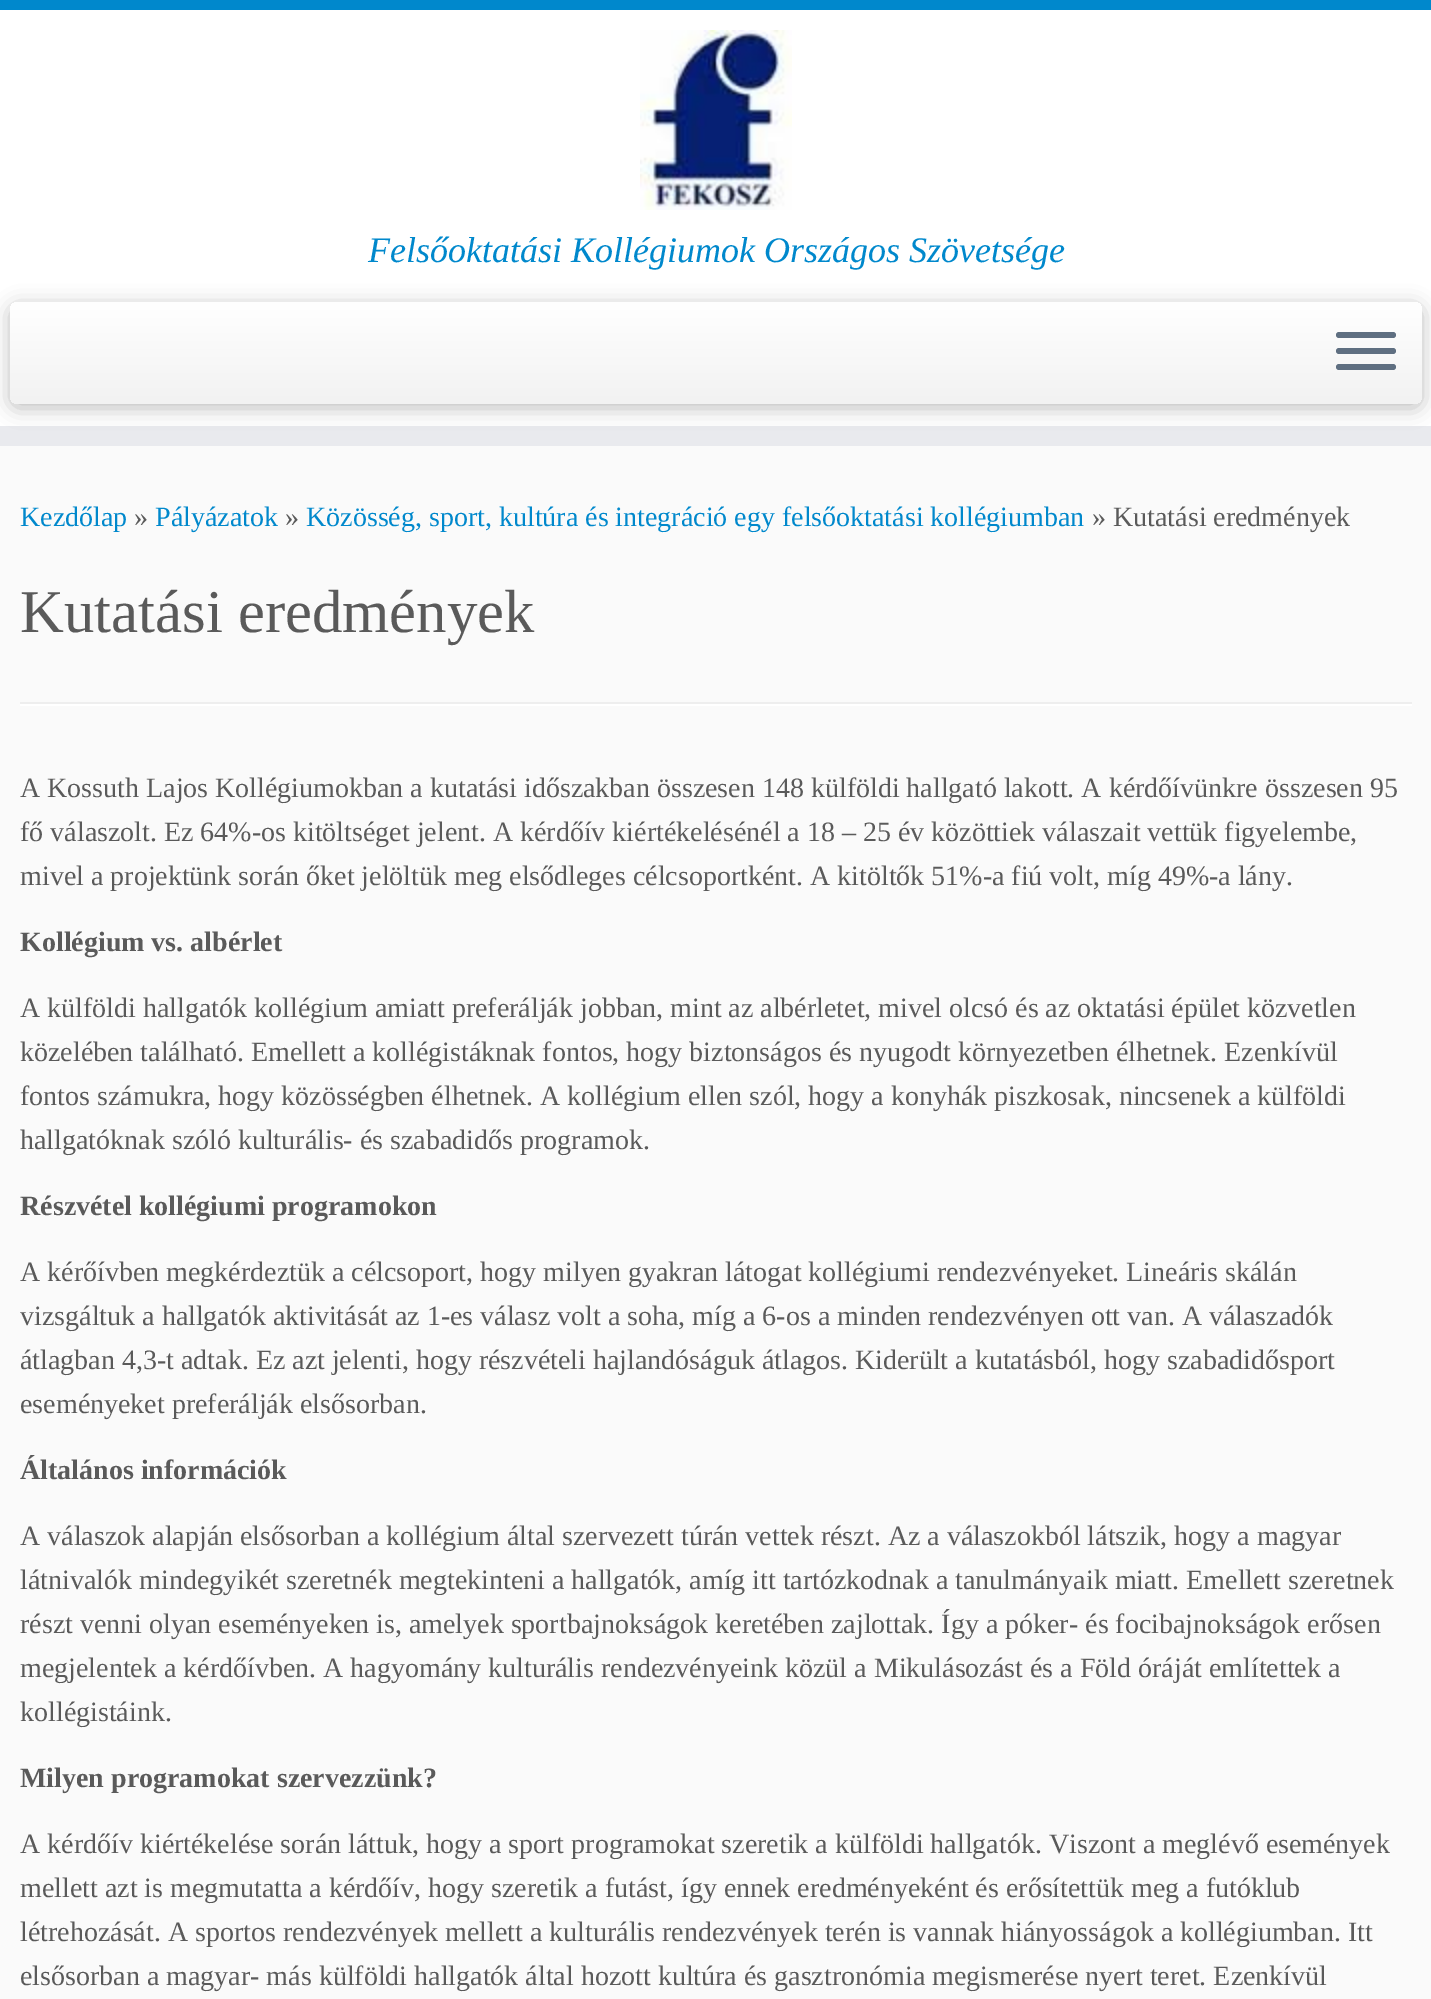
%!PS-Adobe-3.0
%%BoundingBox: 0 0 1431 1999
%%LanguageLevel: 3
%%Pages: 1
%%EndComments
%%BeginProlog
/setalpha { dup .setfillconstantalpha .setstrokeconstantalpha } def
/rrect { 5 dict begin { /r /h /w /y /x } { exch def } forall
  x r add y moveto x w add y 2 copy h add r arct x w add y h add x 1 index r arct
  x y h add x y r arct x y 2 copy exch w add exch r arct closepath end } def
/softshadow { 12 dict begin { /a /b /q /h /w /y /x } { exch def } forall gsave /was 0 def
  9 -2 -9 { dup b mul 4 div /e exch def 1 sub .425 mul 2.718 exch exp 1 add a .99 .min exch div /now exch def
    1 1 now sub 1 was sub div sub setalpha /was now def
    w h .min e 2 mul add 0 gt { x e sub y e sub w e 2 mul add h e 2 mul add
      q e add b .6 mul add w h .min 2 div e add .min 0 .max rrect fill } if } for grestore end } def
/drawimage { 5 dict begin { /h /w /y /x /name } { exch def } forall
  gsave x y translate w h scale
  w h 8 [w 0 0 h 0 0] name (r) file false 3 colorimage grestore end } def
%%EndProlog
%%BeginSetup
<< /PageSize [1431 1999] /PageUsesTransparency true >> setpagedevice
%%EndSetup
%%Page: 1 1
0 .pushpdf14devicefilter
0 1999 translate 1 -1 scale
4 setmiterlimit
0.98 setgray
0 0 1431 1999 rectfill
1 setgray
0 10 1431 416 rectfill
0 0.533 0.8 setrgbcolor
0 0 1431 10 rectfill
0.914 0.918 0.933 setrgbcolor
0 426 1431 20 rectfill
(images/1.raw) 640 30 152 180 drawimage
0 setgray
10 306 1412 102 8 10 0.25 softshadow
gsave 10 302 1412 102 8 rrect clip newpath
<< /ShadingType 2 /ColorSpace /DeviceRGB /Coords [716 302 716 404] /Extend [true true] /Function << /FunctionType 2 /Domain [0 1] /C0 [1 1 1] /C1 [0.949 0.949 0.949] /N 1 >> >> shfill grestore
0.373 0.435 0.506 setrgbcolor
1336 332 60 6 3 rrect fill
1336 348 60 6 3 rrect fill
1336 364 60 6 3 rrect fill
0.933 setgray
20 702 1392 2 rectfill
1 setgray
20 704 1392 2 rectfill
/LiberationSerif-Italic [36 0 0 -36 0 0] selectfont
0 0.533 0.8 setrgbcolor
368 262 moveto (Felsőoktatási Kollégiumok Országos Szövetsége) show
/LiberationSerif-Regular [28 0 0 -28 0 0] selectfont
20 526 moveto (Kezdőlap) show
0.353 setgray
134 526 moveto (») show
0 0.533 0.8 setrgbcolor
155 526 moveto (Pályázatok) show
0.353 setgray
285 526 moveto (») show
0 0.533 0.8 setrgbcolor
306 526 moveto (Közösség, sport, kultúra és integráció egy felsőoktatási kollégiumban) show
0.353 setgray
1092 526 moveto (» Kutatási eredmények) show
/LiberationSerif-Regular [60.75 0 0 -60.75 0 0] selectfont
20 632 moveto (Kutatási eredmények) show
/LiberationSerif-Regular [28 0 0 -28 0 0] selectfont
20 797 moveto (A Kossuth Lajos Kollégiumokban a kutatási időszakban összesen 148 külföldi hallgató lakott. A kérdőívünkre összesen 95) show
20 841 moveto (fő válaszolt. Ez 64%-os kitöltséget jelent. A kérdőív kiértékelésénél a 18 – 25 év közöttiek válaszait vettük figyelembe,) show
20 885 moveto (mivel a projektünk során őket jelöltük meg elsődleges célcsoportként. A kitöltők 51%-a fiú volt, míg 49%-a lány.) show
/LiberationSerif-Bold [28 0 0 -28 0 0] selectfont
20 951 moveto (Kollégium vs. albérlet) show
/LiberationSerif-Regular [28 0 0 -28 0 0] selectfont
20 1017 moveto (A külföldi hallgatók kollégium amiatt preferálják jobban, mint az albérletet, mivel olcsó és az oktatási épület közvetlen) show
20 1061 moveto (közelében található. Emellett a kollégistáknak fontos, hogy biztonságos és nyugodt környezetben élhetnek. Ezenkívül) show
20 1105 moveto (fontos számukra, hogy közösségben élhetnek. A kollégium ellen szól, hogy a konyhák piszkosak, nincsenek a külföldi) show
20 1149 moveto (hallgatóknak szóló kulturális- és szabadidős programok.) show
/LiberationSerif-Bold [28 0 0 -28 0 0] selectfont
20 1215 moveto (Részvétel kollégiumi programokon) show
/LiberationSerif-Regular [28 0 0 -28 0 0] selectfont
20 1281 moveto (A kérőívben megkérdeztük a célcsoport, hogy milyen gyakran látogat kollégiumi rendezvényeket. Lineáris skálán) show
20 1325 moveto (vizsgáltuk a hallgatók aktivitását az 1-es válasz volt a soha, míg a 6-os a minden rendezvényen ott van. A válaszadók) show
20 1369 moveto (átlagban 4,3-t adtak. Ez azt jelenti, hogy részvételi hajlandóságuk átlagos. Kiderült a kutatásból, hogy szabadidősport) show
20 1413 moveto (eseményeket preferálják elsősorban.) show
/LiberationSerif-Bold [28 0 0 -28 0 0] selectfont
20 1479 moveto (Általános információk) show
/LiberationSerif-Regular [28 0 0 -28 0 0] selectfont
20 1545 moveto (A válaszok alapján elsősorban a kollégium által szervezett túrán vettek részt. Az a válaszokból látszik, hogy a magyar) show
20 1589 moveto (látnivalók mindegyikét szeretnék megtekinteni a hallgatók, amíg itt tartózkodnak a tanulmányaik miatt. Emellett szeretnek) show
20 1633 moveto (részt venni olyan eseményeken is, amelyek sportbajnokságok keretében zajlottak. Így a póker- és focibajnokságok erősen) show
20 1677 moveto (megjelentek a kérdőívben. A hagyomány kulturális rendezvényeink közül a Mikulásozást és a Föld óráját említettek a) show
20 1721 moveto (kollégistáink.) show
/LiberationSerif-Bold [28 0 0 -28 0 0] selectfont
20 1787 moveto (Milyen programokat szervezzünk?) show
/LiberationSerif-Regular [28 0 0 -28 0 0] selectfont
20 1853 moveto (A kérdőív kiértékelése során láttuk, hogy a sport programokat szeretik a külföldi hallgatók. Viszont a meglévő események) show
20 1897 moveto (mellett azt is megmutatta a kérdőív, hogy szeretik a futást, így ennek eredményeként és erősítettük meg a futóklub) show
20 1941 moveto (létrehozását. A sportos rendezvények mellett a kulturális rendezvények terén is vannak hiányosságok a kollégiumban. Itt) show
20 1985 moveto (elsősorban a magyar- más külföldi hallgatók által hozott kultúra és gasztronómia megismerése nyert teret. Ezenkívül) show
.poppdf14devicefilter showpage
%%EOF
